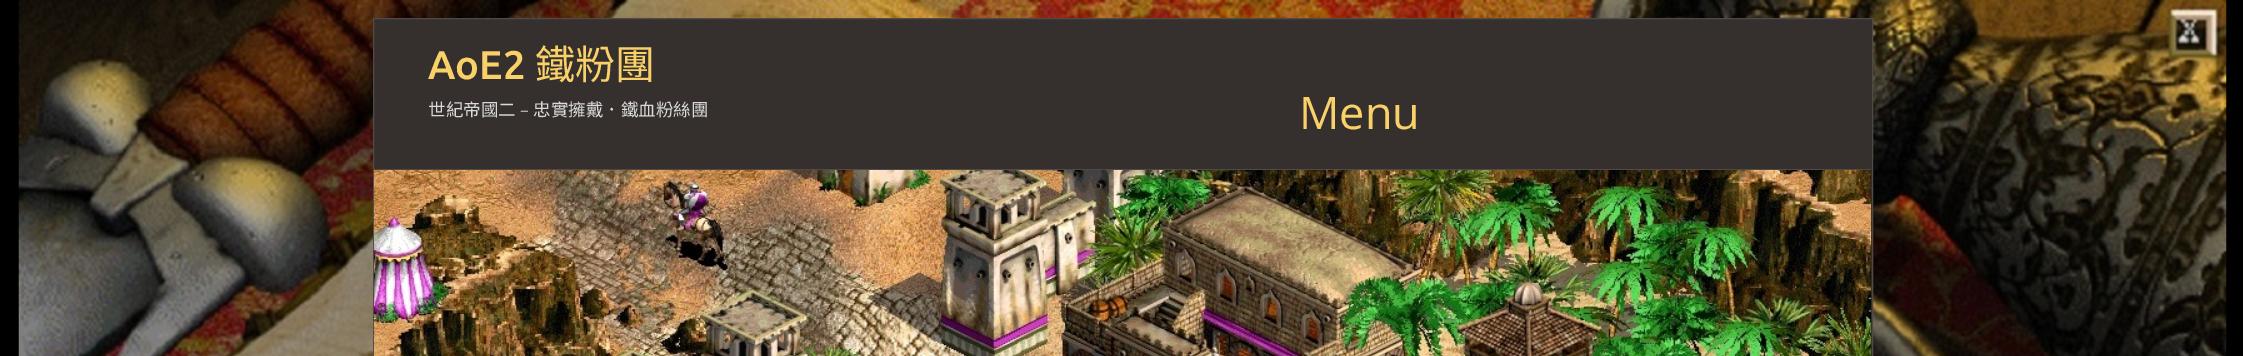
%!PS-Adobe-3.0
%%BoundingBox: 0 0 2243 356
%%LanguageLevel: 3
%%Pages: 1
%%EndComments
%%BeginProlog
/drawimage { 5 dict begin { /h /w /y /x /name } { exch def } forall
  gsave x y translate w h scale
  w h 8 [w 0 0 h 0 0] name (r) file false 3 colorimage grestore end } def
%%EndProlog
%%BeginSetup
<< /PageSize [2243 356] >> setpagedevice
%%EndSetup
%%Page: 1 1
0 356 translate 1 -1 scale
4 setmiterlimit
0 setgray
0 0 2243 356 rectfill
(images/1.raw) 18 0 2209 356 drawimage
0.208 0.188 0.18 setrgbcolor
newpath 373.5 18.5 moveto 1872.5 18.5 lineto 1872.5 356.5 lineto 373.5 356.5 lineto closepath gsave fill grestore
0.314 0.286 0.275 setrgbcolor
stroke
374 169 1497 1 rectfill
(images/2.raw) 373 170 1499 186 drawimage
/Ubuntu-Medium [40 0 0 -40 0 0] selectfont
0.98 0.82 0.412 setrgbcolor
428 79 moveto (AoE2) show
/NotoSansCJKTC-Regular [40 0 0 -40 0 0] selectfont
535 79 moveto (鐵粉團) show
/NotoSansCJKTC-Regular [17.5 0 0 -17.5 0 0] selectfont
0.855 setgray
428 116 moveto (世紀帝國二) show
/OpenSans-Light [17.5 0 0 -17.5 0 0] selectfont
520 116 moveto (–) show
/NotoSansCJKTC-Regular [17.5 0 0 -17.5 0 0] selectfont
533 116 moveto (忠實擁戴．鐵血粉絲團) show
/OpenSans-Regular [45 0 0 -45 0 0] selectfont
0.98 0.82 0.412 setrgbcolor
1299 129 moveto (Menu) show
showpage
%%EOF
